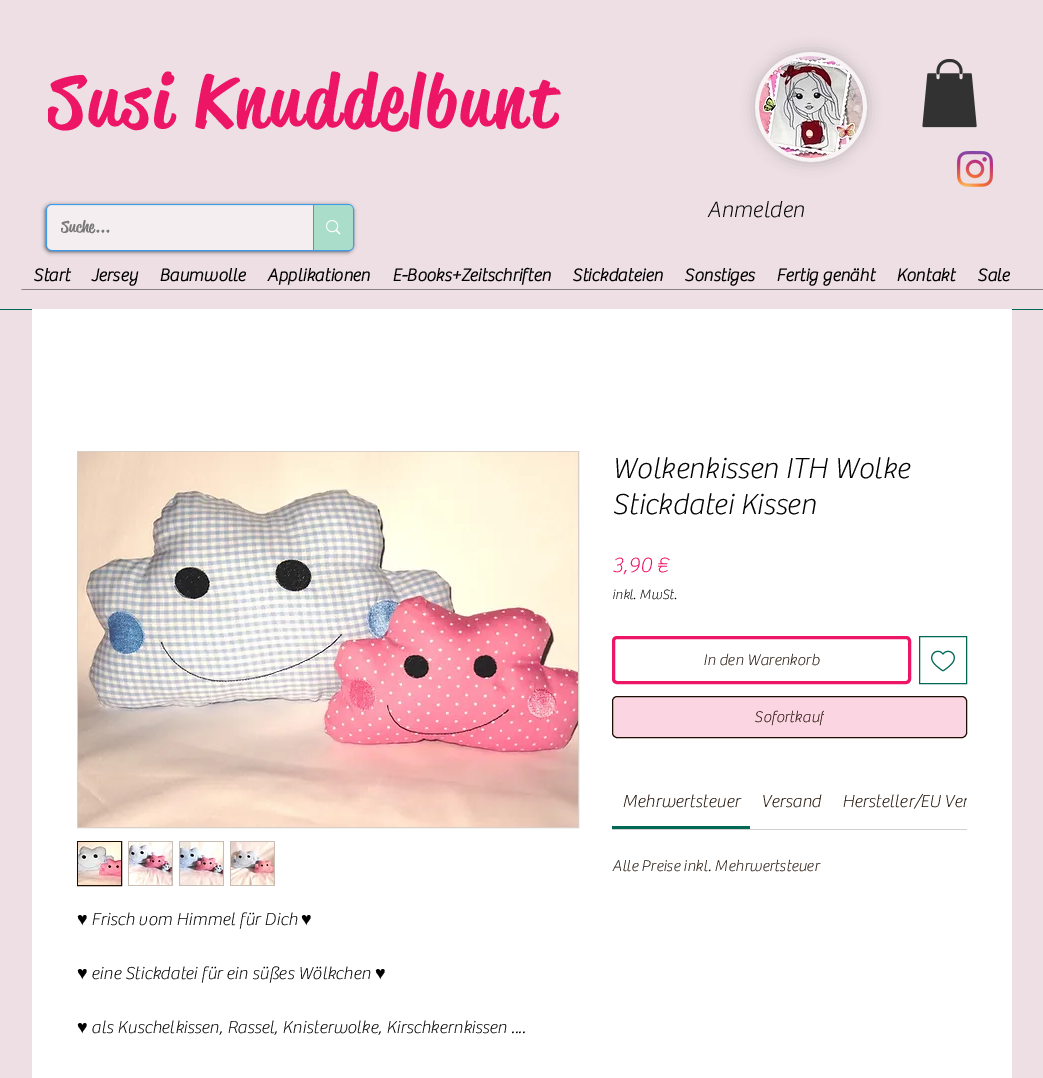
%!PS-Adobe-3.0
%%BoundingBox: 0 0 1043 1078
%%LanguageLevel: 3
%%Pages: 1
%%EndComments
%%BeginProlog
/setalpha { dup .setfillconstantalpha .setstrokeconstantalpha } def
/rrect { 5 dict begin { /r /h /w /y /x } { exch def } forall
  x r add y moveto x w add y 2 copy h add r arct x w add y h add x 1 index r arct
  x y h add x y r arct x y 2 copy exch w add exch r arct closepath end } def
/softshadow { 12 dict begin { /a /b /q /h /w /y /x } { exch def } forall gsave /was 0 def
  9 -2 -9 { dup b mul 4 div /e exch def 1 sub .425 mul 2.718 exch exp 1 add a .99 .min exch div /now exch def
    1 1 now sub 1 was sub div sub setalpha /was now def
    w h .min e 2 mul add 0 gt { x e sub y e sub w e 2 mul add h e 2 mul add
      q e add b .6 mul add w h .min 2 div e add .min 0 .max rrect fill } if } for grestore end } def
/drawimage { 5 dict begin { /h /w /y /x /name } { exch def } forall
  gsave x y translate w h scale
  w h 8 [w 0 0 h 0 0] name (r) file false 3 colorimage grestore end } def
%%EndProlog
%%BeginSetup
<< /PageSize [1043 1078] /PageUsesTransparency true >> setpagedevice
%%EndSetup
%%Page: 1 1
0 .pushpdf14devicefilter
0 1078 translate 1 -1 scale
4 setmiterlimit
0.929 0.875 0.894 setrgbcolor
0 0 1043 1078 rectfill
gsave
newpath 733 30 moveto 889 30 lineto 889 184 lineto 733 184 lineto closepath 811 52 moveto 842 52 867 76.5 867 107 curveto 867 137.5 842 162 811 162 curveto 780 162 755 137.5 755 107 curveto 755 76.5 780 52 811 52 curveto closepath eoclip newpath
0 setgray
755 52 112 110 55 7 0.2 softshadow
grestore
0.38 setalpha
1 setgray
newpath 811 52 moveto 842 52 867 76.5 867 107 curveto 867 137.5 842 162 811 162 curveto 780 162 755 137.5 755 107 curveto 755 76.5 780 52 811 52 curveto closepath fill
4 setlinewidth
newpath 811 54 moveto 841 54 865 77.5 865 107 curveto 865 136.5 841 160 811 160 curveto 781 160 757 136.5 757 107 curveto 757 77.5 781 54 811 54 curveto closepath stroke
1 setalpha
(images/1.raw) 759 56 104 102 drawimage
(images/2.raw) 922 59 55 69 drawimage
(images/3.raw) 957 151 36 36 drawimage
gsave
newpath 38 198 moveto 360 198 lineto 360 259 lineto 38 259 lineto closepath 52 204 moveto 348 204 lineto 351.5 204 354 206.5 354 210 curveto 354 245 lineto 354 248.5 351.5 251 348 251 curveto 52 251 lineto 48.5 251 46 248.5 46 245 curveto 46 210 lineto 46 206.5 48.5 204 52 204 curveto closepath eoclip newpath
0 setgray
45 205 308 47 6 2 0.6 softshadow
grestore
0.239 0.608 0.914 setrgbcolor
1 setlinewidth
46.5 204.5 307 46 5.5 rrect stroke
0.47 setalpha
1 setgray
47 205 306 45 5 rrect fill
0.73 setalpha
0.565 0.843 0.741 setrgbcolor
newpath 313 205 moveto 348 205 lineto 351 205 353 207 353 210 curveto 353 245 lineto 353 248 351 250 348 250 curveto 313 250 lineto closepath fill
1 setalpha
0.239 0.608 0.914 setrgbcolor
313 205 1 45 rectfill
(images/4.raw) 326 220 15 15 drawimage
0.537 0.502 0.514 setrgbcolor
22 289 1021 1 rectfill
0.706 0.663 0.678 setrgbcolor
21 289 1 1 rectfill
0.004 0.408 0.333 setrgbcolor
0 309 1043 1 rectfill
1 setgray
32 309 980 769 rectfill
0.929 0.082 0.4 setrgbcolor
3 setlinewidth
613.5 637.5 296 45 3.5 rrect stroke
0.004 0.408 0.333 setrgbcolor
1 setlinewidth
919.5 636.5 47 47 rectstroke
(images/5.raw) 931 650 24 22 drawimage
0.988 0.835 0.89 setrgbcolor
612.5 696.5 354 41 4.5 rrect gsave fill grestore
0.114 0.055 0.012 setrgbcolor
stroke
0.824 0.812 0.804 setrgbcolor
612 829 355 1 rectfill
0.004 0.408 0.333 setrgbcolor
612 826 138 3 rectfill
0.843 0.812 0.784 setrgbcolor
77.5 451.5 501 376 rectstroke
(images/6.raw) 78 452 500 375 drawimage
0.114 0.055 0.012 setrgbcolor
77.5 841.5 44 44 rectstroke
(images/7.raw) 78 842 43 43 drawimage
0.784 0.741 0.706 setrgbcolor
128 841 45 45 rectfill
(images/8.raw) 129 842 43 43 drawimage
179 841 45 45 rectfill
(images/9.raw) 180 842 43 43 drawimage
230 841 45 45 rectfill
(images/10.raw) 231 842 43 43 drawimage
gsave
48 55 513 93 rectclip
/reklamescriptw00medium-Medium [73 0 0 -73 0 0] selectfont
0.929 0.082 0.4 setrgbcolor
48 126 moveto 3.6 0 (Susi Knuddelbunt) ashow
grestore
/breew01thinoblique-Thin [23 0 0 -23 0 0] selectfont
0 setgray
707 217 moveto (Anmelden) show
gsave
61 216 210 21 rectclip
/reklamescriptw00medium-Medium [16 0 0 -16 0 0] selectfont
0.471 setgray
61 232 moveto (Suche...) show
grestore
/breew01thinoblique-Bold [18 0 0 -18 0 0] selectfont
33 281 moveto (Start) show
91 281 moveto (Jersey) show
159 281 moveto (Baumwolle) show
267 281 moveto (Applikationen) show
392 281 moveto (E-Books+Zeitschriften) show
572 281 moveto (Stickdateien) show
684 281 moveto (Sonstiges) show
776 281 moveto (Fertig genäht) show
896 281 moveto (Kontakt) show
977 281 moveto (Sale) show
/breew01thinoblique-Thin [30 0 0 -30 0 0] selectfont
612 478 moveto (Wolkenkissen ITH Wolke) show
612 514 moveto (Stickdatei Kissen) show
/breew01thinoblique-Thin [22 0 0 -22 0 0] selectfont
0.929 0.082 0.4 setrgbcolor
612 572 moveto (3,90 €) show
/breew01thinoblique-Thin [14 0 0 -14 0 0] selectfont
0 setgray
612 599 moveto (inkl. MwSt.) show
/breew01thinoblique-Thin [16 0 0 -16 0 0] selectfont
0.114 0.055 0.012 setrgbcolor
703 665 moveto (In den Warenkorb) show
gsave
754 707 70 20 rectclip
754 722 moveto (Sofortkauf) show
grestore
/breew01thinoblique-Thin [18 0 0 -18 0 0] selectfont
622 807 moveto (Mehrwertsteuer) show
761 807 moveto (Versand) show
gsave
612 774 355 55 rectclip
842 807 moveto (Hersteller/EU Ver) show
grestore
/breew01thinoblique-Thin [16 0 0 -16 0 0] selectfont
612 871 moveto (Alle Preise inkl. Mehrwertsteuer) show
/LiberationSans-Regular [18 0 0 -18 0 0] selectfont
0 setgray
77 925 moveto (♥) show
/breew01thinoblique-Thin [18 0 0 -18 0 0] selectfont
91 925 moveto (Frisch vom Himmel für Dich) show
/LiberationSans-Regular [18 0 0 -18 0 0] selectfont
301 925 moveto (♥) show
77 979 moveto (♥) show
/breew01thinoblique-Thin [18 0 0 -18 0 0] selectfont
91 979 moveto (eine Stickdatei für ein süßes Wölkchen) show
/LiberationSans-Regular [18 0 0 -18 0 0] selectfont
375 979 moveto (♥) show
77 1033 moveto (♥) show
/breew01thinoblique-Thin [18 0 0 -18 0 0] selectfont
91 1033 moveto (als Kuschelkissen, Rassel, Knisterwolke, Kirschkernkissen ....) show
.poppdf14devicefilter showpage
%%EOF
